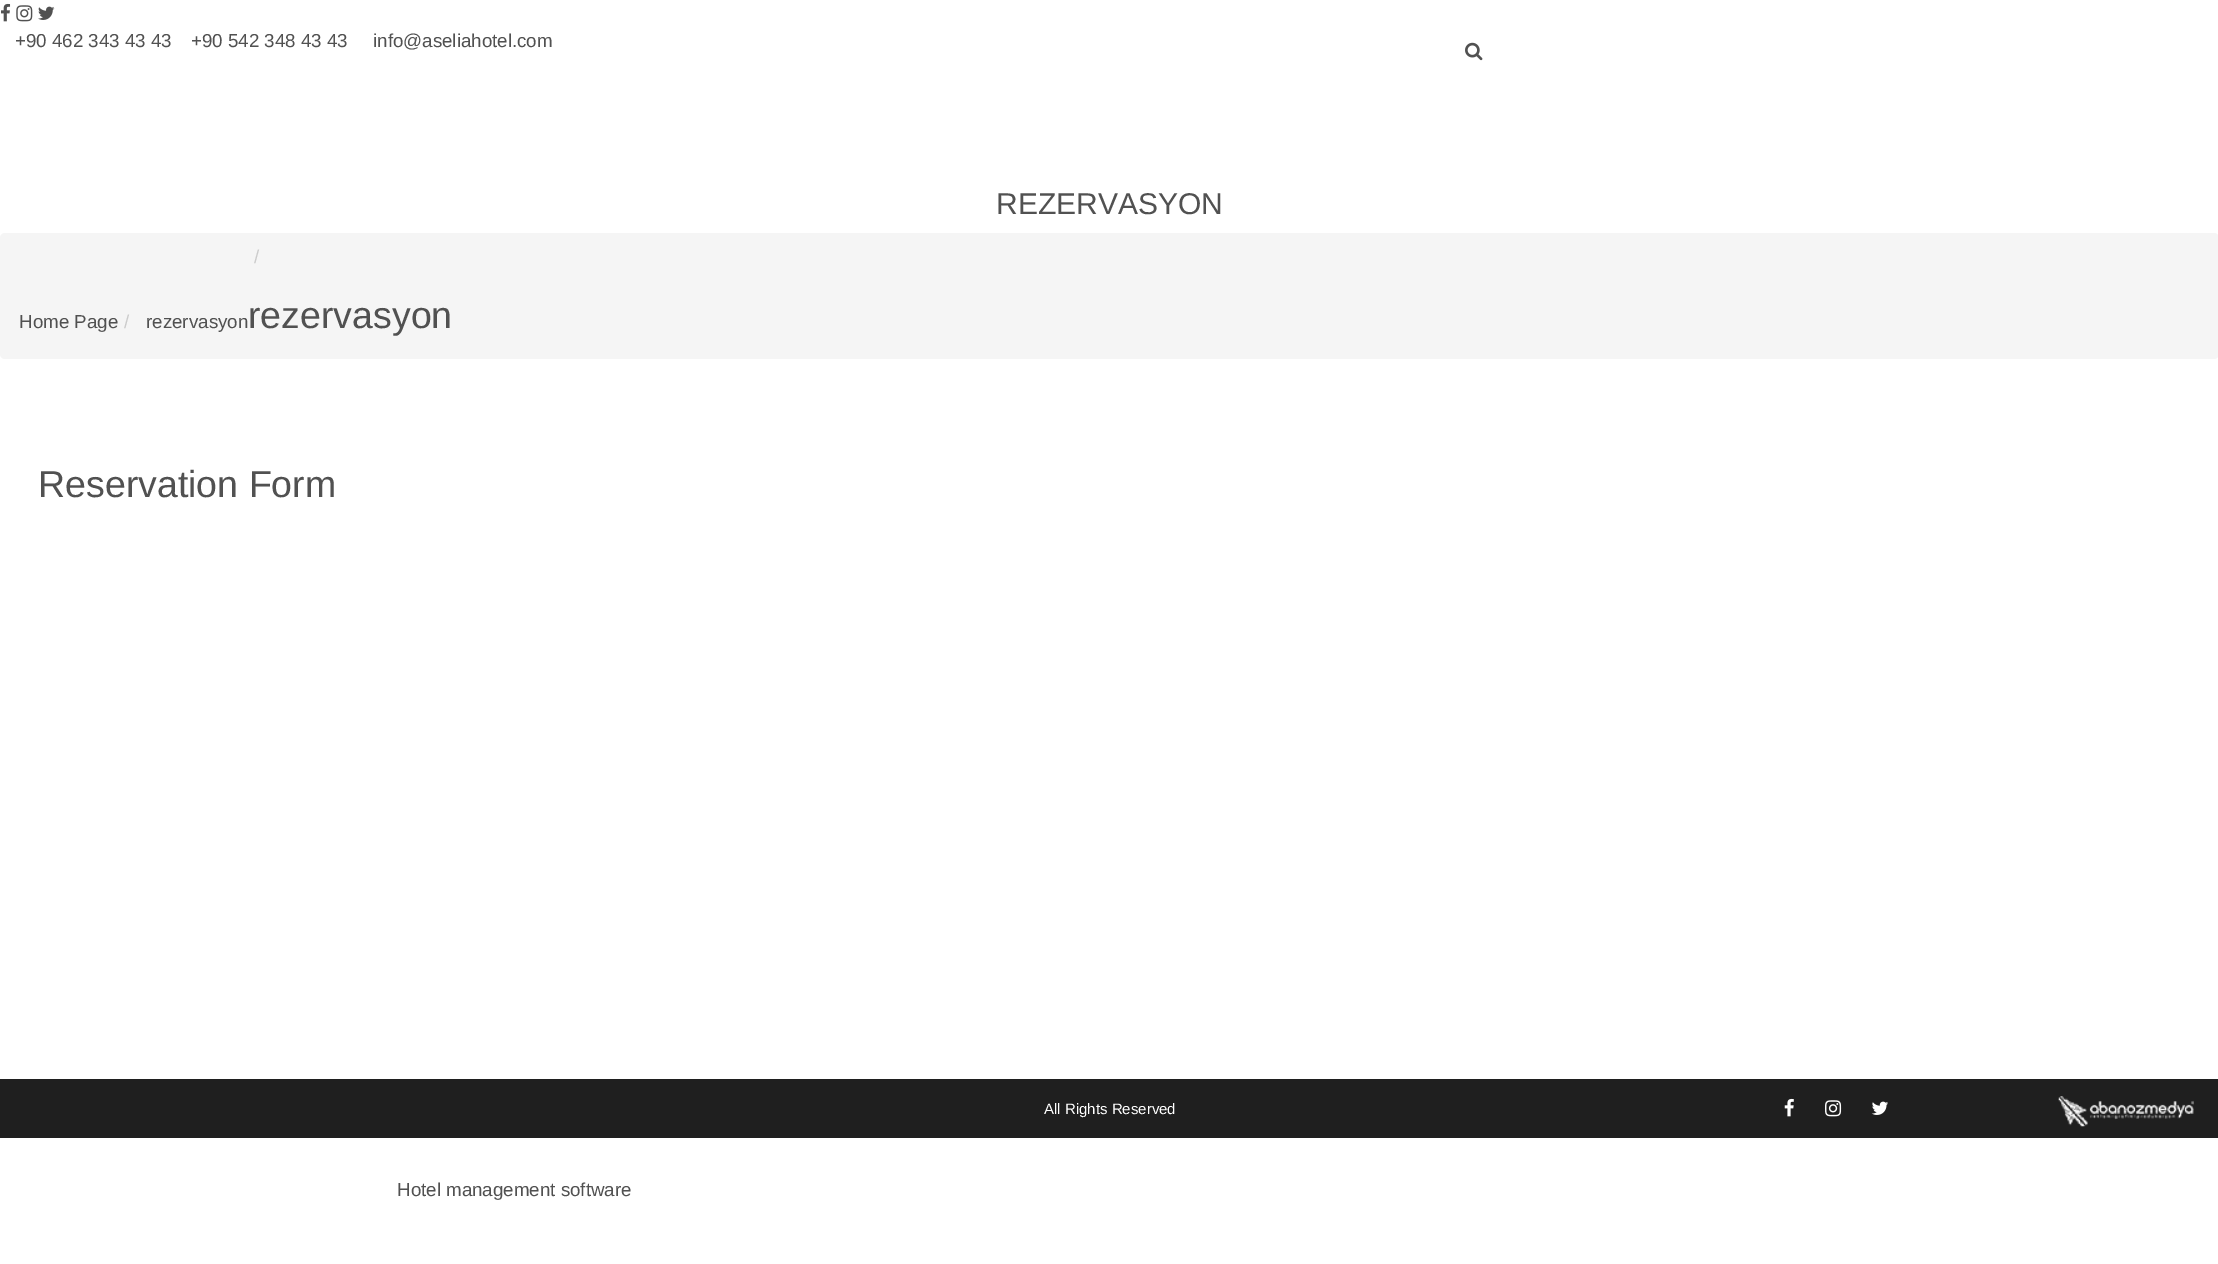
%!PS-Adobe-3.0
%%BoundingBox: 0 0 2218 1264
%%LanguageLevel: 3
%%Pages: 1
%%EndComments
%%BeginProlog
/rrect { 5 dict begin { /r /h /w /y /x } { exch def } forall
  x r add y moveto x w add y 2 copy h add r arct x w add y h add x 1 index r arct
  x y h add x y r arct x y 2 copy exch w add exch r arct closepath end } def
/drawimage { 5 dict begin { /h /w /y /x /name } { exch def } forall
  gsave x y translate w h scale
  w h 8 [w 0 0 h 0 0] name (r) file false 3 colorimage grestore end } def
%%EndProlog
%%BeginSetup
<< /PageSize [2218 1264] >> setpagedevice
%%EndSetup
%%Page: 1 1
0 1264 translate 1 -1 scale
4 setmiterlimit
1 setgray
0 0 2218 1264 rectfill
(images/1.raw) 1 3 10 19 drawimage
(images/2.raw) 16 5 17 17 drawimage
(images/3.raw) 38 6 17 14 drawimage
(images/4.raw) 1465 42 18 19 drawimage
0.961 setgray
0 233 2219 126 5 rrect fill
0.122 setgray
0 1079 2218 59 rectfill
(images/5.raw) 1784 1098 10 19 drawimage
(images/6.raw) 1825 1100 17 17 drawimage
(images/7.raw) 1871 1101 17 14 drawimage
(images/8.raw) 2058 1096 136 31 drawimage
/LiberationSans-Regular [18.75 0 0 -18.75 0 0] selectfont
0.318 setgray
15 47 moveto (+90 462 343 43 43) show
191 47 moveto (+90 542 348 43 43) show
373 47 moveto (info@aseliahotel.com) show
/LiberationSans-Regular [30 0 0 -30 0 0] selectfont
996 214 moveto (REZERVASYON) show
/LiberationSans-Regular [18.75 0 0 -18.75 0 0] selectfont
397 1196 moveto (Hotel management software) show
19 328 moveto (Home Page) show
0.8 setgray
124 328 moveto (/) show
0.318 setgray
146 328 moveto (rezervasyon) show
0.8 setgray
254 263 moveto (/) show
/LiberationSans-Regular [37.5 0 0 -37.5 0 0] selectfont
0.318 setgray
248 328 moveto (rezervasyon) show
38 497 moveto (Reservation Form) show
/LiberationSans-Regular [15 0 0 -15 0 0] selectfont
1 setgray
1044 1114 moveto (All Rights Reserved) show
showpage
%%EOF
